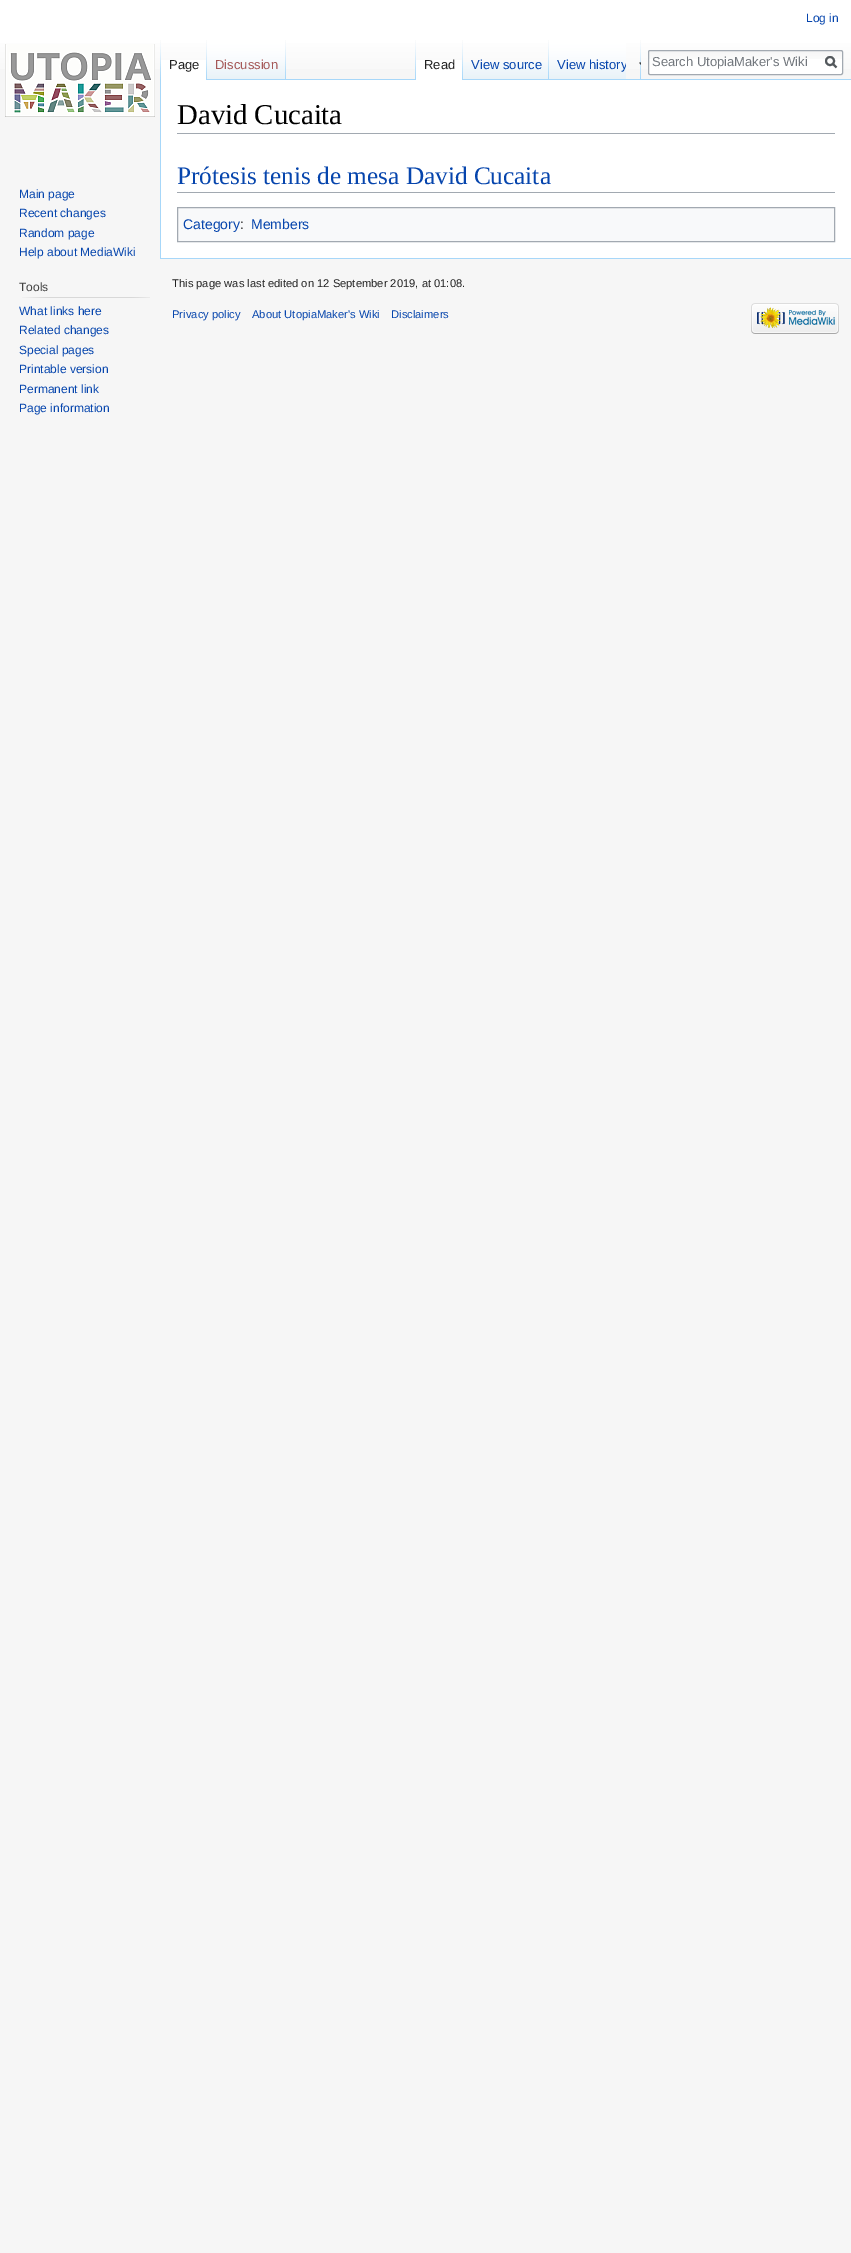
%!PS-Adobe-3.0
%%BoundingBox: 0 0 851 2253
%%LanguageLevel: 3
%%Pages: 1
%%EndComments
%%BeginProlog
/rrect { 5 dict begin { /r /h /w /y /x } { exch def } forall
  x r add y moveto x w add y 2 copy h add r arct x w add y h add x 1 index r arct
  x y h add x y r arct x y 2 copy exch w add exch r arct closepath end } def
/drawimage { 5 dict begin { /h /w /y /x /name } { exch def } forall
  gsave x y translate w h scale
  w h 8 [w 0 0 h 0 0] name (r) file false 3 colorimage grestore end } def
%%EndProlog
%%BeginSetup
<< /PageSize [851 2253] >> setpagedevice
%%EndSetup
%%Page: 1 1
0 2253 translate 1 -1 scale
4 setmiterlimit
0.965 setgray
0 0 851 2253 rectfill
gsave newpath 0 0 moveto 851 0 lineto 851 69 lineto 0 69 lineto closepath clip newpath
<< /ShadingType 2 /ColorSpace /DeviceRGB /Coords [426 0 426 80] /Extend [true true] /Function << /FunctionType 3 /Domain [0 1] /Functions [<< /FunctionType 2 /Domain [0 1] /C0 [1 1 1] /C1 [1 1 1] /N 1 >> << /FunctionType 2 /Domain [0 1] /C0 [1 1 1] /C1 [0.965 0.965 0.965] /N 1 >>] /Bounds [0.5] /Encode [0 1 0 1] >> >> shfill grestore
(images/1.raw) 160 40 1 39 drawimage
1 setgray
161 60 45 20 rectfill
(images/2.raw) 206 40 1 40 drawimage
(images/3.raw) 207 40 78 39 drawimage
(images/1.raw) 285 40 1 39 drawimage
(images/1.raw) 415 40 1 39 drawimage
0.655 0.843 0.976 setrgbcolor
207 79 644 1 rectfill
1 setgray
416 60 46 20 rectfill
(images/2.raw) 462 40 1 40 drawimage
(images/4.raw) 463 62 85 17 drawimage
(images/1.raw) 548 40 1 39 drawimage
(images/5.raw) 549 40 77 39 drawimage
(images/1.raw) 640 40 1 39 drawimage
(images/6.raw) 639 62 2 3 drawimage
648 50 195 25 2 rrect fill
(images/7.raw) 648 51 195 8 drawimage
0.635 0.663 0.694 setrgbcolor
648.5 50.5 194 24 1.5 rrect stroke
0.329 0.349 0.365 setrgbcolor
2 setlinewidth
newpath 836.5 67.5 moveto 832.5 63.5 lineto stroke
newpath 830 61 4 0 360 arc closepath stroke
(images/8.raw) 5 44 150 73 drawimage
(images/9.raw) 22 297 128 1 drawimage
1 setgray
161 80 690 178 rectfill
0.655 0.843 0.976 setrgbcolor
160 258 691 1 rectfill
160 79 1 180 rectfill
0.635 0.663 0.694 setrgbcolor
177 133 658 1 rectfill
177 192 658 1 rectfill
0.973 0.976 0.98 setrgbcolor
newpath 177.5 207.5 moveto 834.5 207.5 lineto 834.5 241.5 lineto 177.5 241.5 lineto closepath gsave fill grestore
0.635 0.663 0.694 setrgbcolor
1 setlinewidth
stroke
(images/10.raw) 751 303 88 31 drawimage
/LiberationSans-Regular [12 0 0 -12 0 0] selectfont
0.024 0.271 0.678 setrgbcolor
806 22 moveto (Log in) show
/LiberationSans-Regular [13 0 0 -13 0 0] selectfont
0.133 setgray
169 69 moveto (Page) show
0.647 0.345 0.345 setrgbcolor
215 69 moveto (Discussion) show
0.133 setgray
424 69 moveto (Read) show
0.024 0.271 0.678 setrgbcolor
471 69 moveto (View source) show
gsave
549 40 77 40 rectclip
557 69 moveto (View history) show
grestore
0.447 0.467 0.49 setrgbcolor
652 66 moveto (Search UtopiaMaker's Wiki) show
/LiberationSans-Regular [12 0 0 -12 0 0] selectfont
0.024 0.271 0.678 setrgbcolor
19 198 moveto (Main page) show
19 217 moveto (Recent changes) show
19 237 moveto (Random page) show
19 256 moveto (Help about MediaWiki) show
0.267 setgray
19 291 moveto (Tools) show
0.024 0.271 0.678 setrgbcolor
19 315 moveto (What links here) show
19 334 moveto (Related changes) show
19 354 moveto (Special pages) show
19 373 moveto (Printable version) show
19 393 moveto (Permanent link) show
19 412 moveto (Page information) show
/LiberationSerif-Regular [28.75 0 0 -28.75 0 0] selectfont
0 setgray
177 124 moveto (David Cucaita) show
/LiberationSerif-Regular [25.25 0 0 -25.25 0 0] selectfont
0.024 0.271 0.678 setrgbcolor
177 184 moveto (Prótesis tenis de mesa David Cucaita) show
/LiberationSans-Regular [14 0 0 -14 0 0] selectfont
183 229 moveto (Category) show
0.133 setgray
240 229 moveto (:) show
0.024 0.271 0.678 setrgbcolor
251 229 moveto (Members) show
/LiberationSans-Regular [11.2 0 0 -11.2 0 0] selectfont
0.133 setgray
172 287 moveto (This page was last edited on 12 September 2019, at 01:08.) show
0.024 0.271 0.678 setrgbcolor
172 318 moveto (Privacy policy) show
252 318 moveto (About UtopiaMaker's Wiki) show
391 318 moveto (Disclaimers) show
showpage
%%EOF
